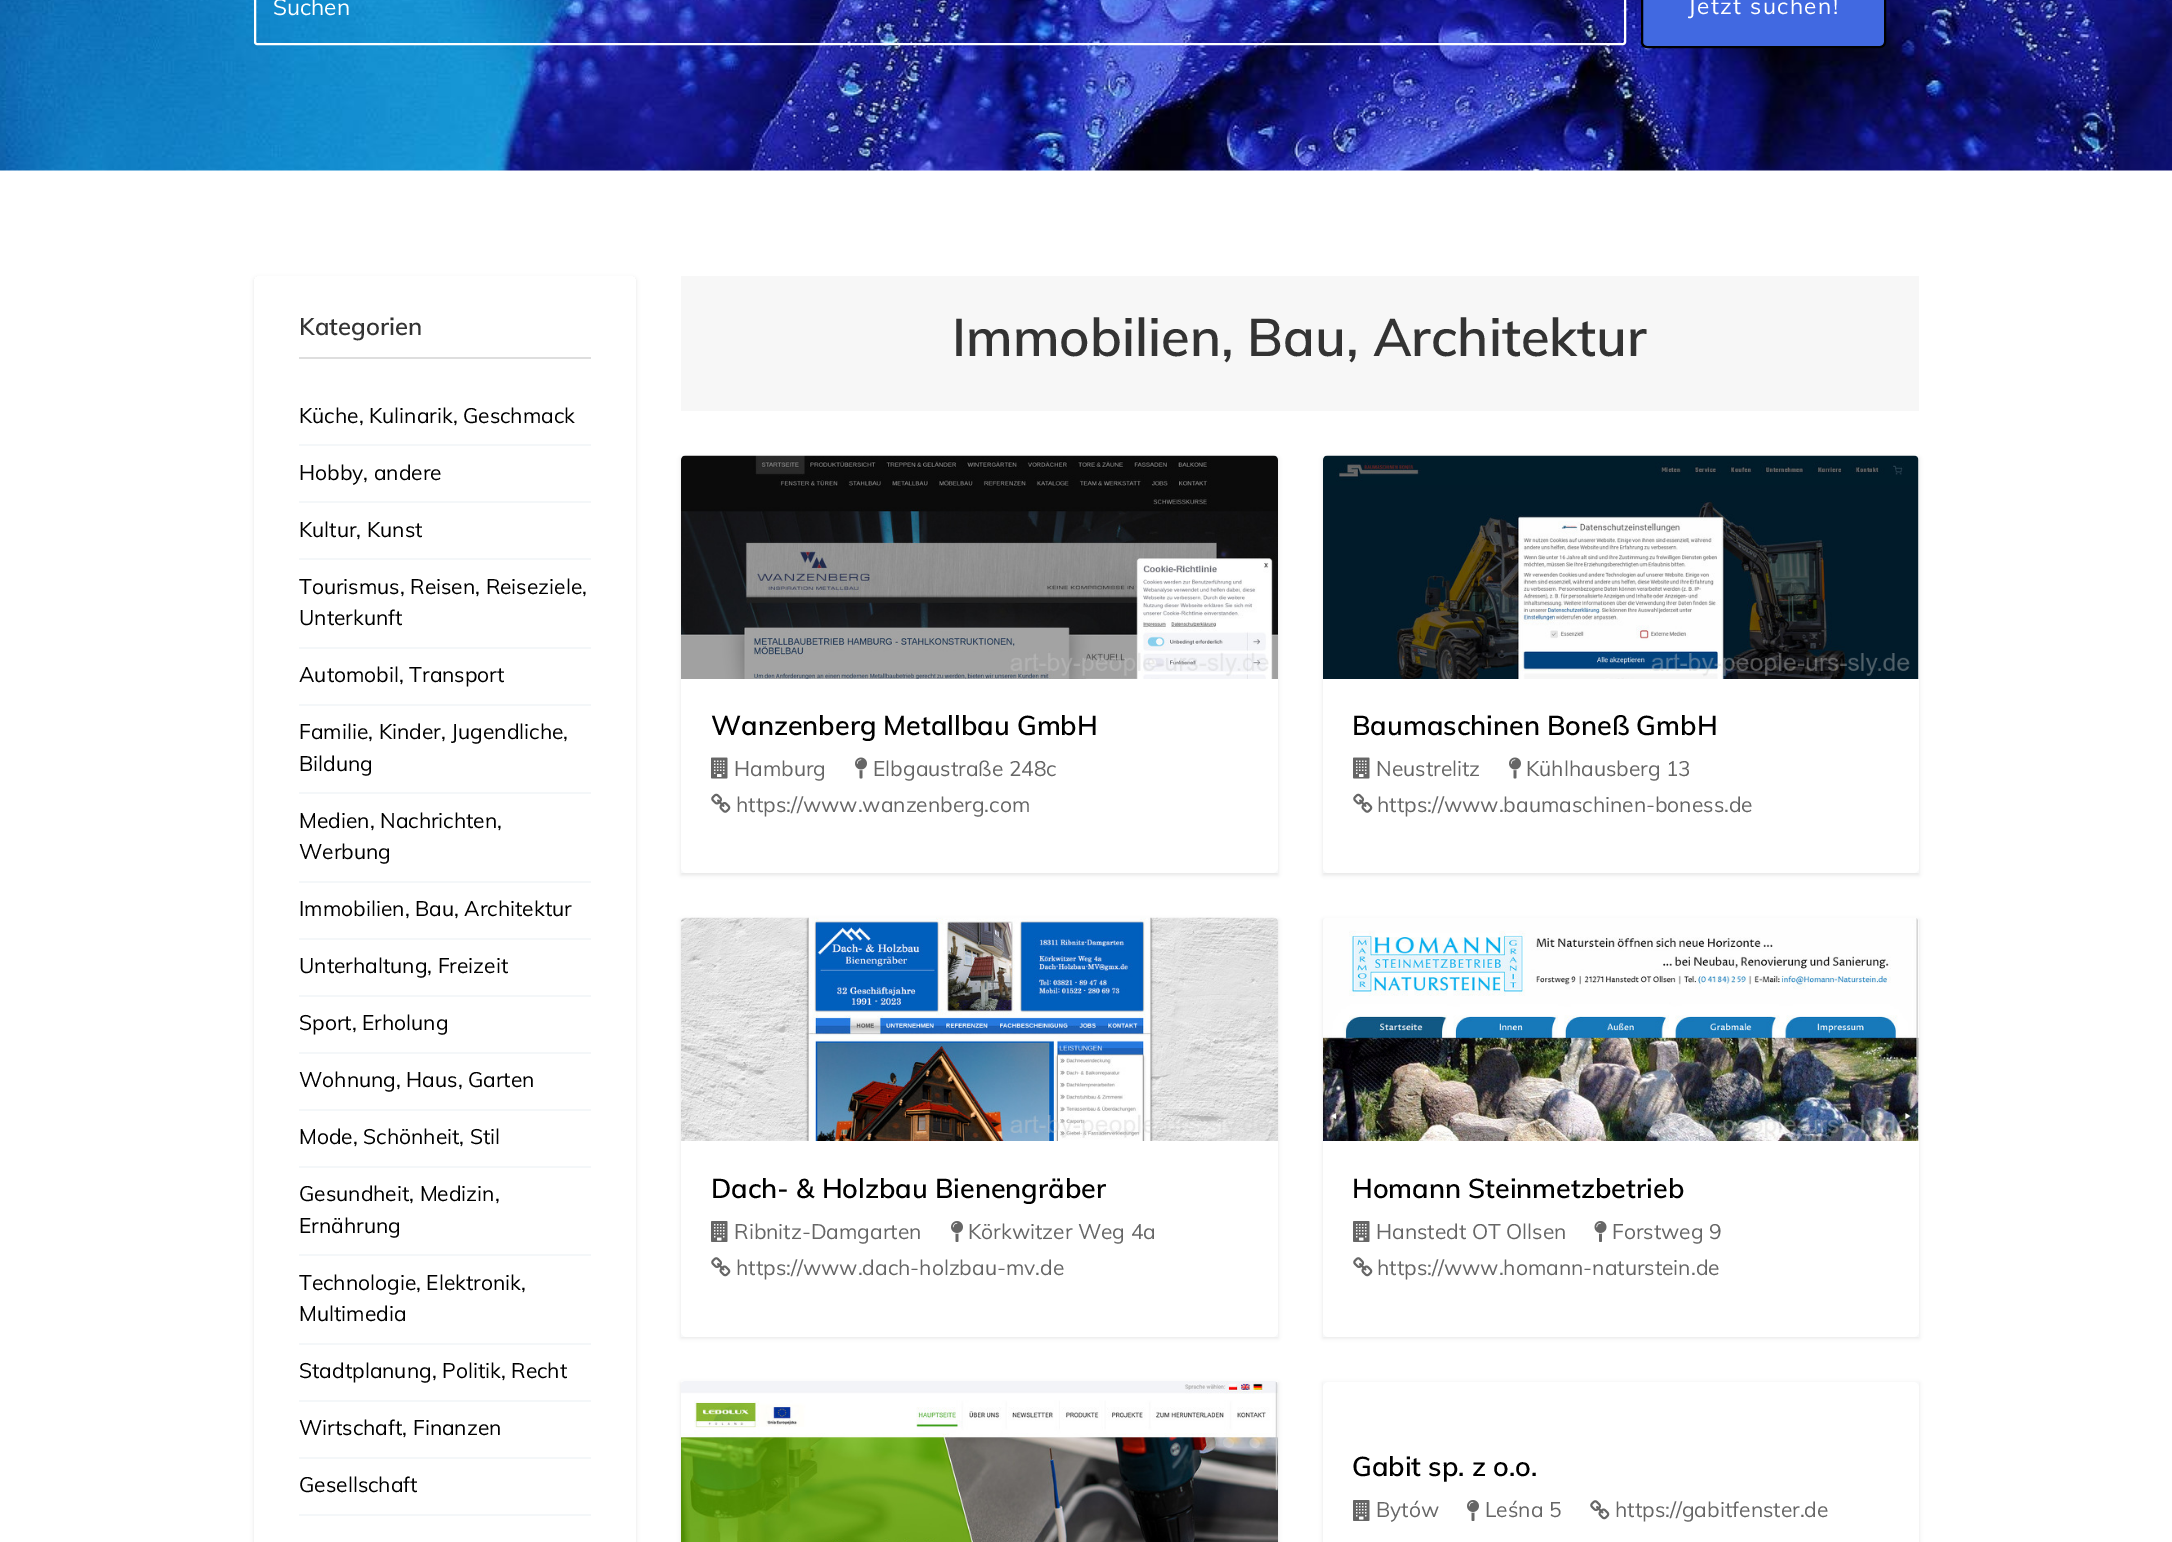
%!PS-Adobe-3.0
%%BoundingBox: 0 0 2172 1542
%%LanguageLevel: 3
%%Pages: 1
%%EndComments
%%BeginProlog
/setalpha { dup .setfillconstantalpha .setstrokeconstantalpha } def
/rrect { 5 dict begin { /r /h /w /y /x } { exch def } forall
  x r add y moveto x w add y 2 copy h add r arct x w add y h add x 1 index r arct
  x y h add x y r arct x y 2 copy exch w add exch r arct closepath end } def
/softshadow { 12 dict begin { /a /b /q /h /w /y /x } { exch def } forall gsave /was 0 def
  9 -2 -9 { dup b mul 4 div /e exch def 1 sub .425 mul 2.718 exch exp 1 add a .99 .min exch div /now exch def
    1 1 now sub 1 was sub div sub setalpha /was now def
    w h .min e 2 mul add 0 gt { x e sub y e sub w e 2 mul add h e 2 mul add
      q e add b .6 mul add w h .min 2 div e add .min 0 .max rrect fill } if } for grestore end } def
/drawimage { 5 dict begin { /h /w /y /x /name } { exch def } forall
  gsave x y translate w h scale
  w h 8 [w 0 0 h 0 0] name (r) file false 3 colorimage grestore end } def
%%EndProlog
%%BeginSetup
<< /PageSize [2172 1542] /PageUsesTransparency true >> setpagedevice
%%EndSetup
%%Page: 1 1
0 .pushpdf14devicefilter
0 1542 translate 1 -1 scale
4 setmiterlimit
1 setgray
0 0 2172 1542 rectfill
(images/1.raw) 0 0 2172 171 drawimage
2 setlinewidth
255 -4 1370 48 2 rrect stroke
0.255 0.412 0.882 setrgbcolor
1642 -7 243 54 5 rrect gsave fill grestore
0 setgray
stroke
gsave
newpath 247 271 moveto 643 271 lineto 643 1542 lineto 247 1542 lineto closepath 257 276 moveto 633 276 lineto 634.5 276 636 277.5 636 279 curveto 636 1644 lineto 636 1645.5 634.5 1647 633 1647 curveto 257 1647 lineto 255.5 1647 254 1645.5 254 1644 curveto 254 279 lineto 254 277.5 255.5 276 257 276 curveto closepath eoclip newpath
254 278 382 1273 3 2 0.1 softshadow
grestore
0.871 setgray
299 357 292 2 rectfill
0.957 0.969 0.976 setrgbcolor
299 444 292 2 rectfill
299 501 292 2 rectfill
299 558 292 2 rectfill
299 647 292 2 rectfill
299 704 292 2 rectfill
299 792 292 2 rectfill
299 881 292 2 rectfill
299 938 292 2 rectfill
299 995 292 2 rectfill
299 1052 292 2 rectfill
299 1109 292 2 rectfill
299 1166 292 2 rectfill
299 1254 292 2 rectfill
299 1343 292 2 rectfill
299 1400 292 2 rectfill
299 1457 292 2 rectfill
299 1514 292 2 rectfill
0.969 setgray
681 276 1238 135 rectfill
0 setgray
681 458 597 417 0 2 0.1 softshadow
0.973 0.976 0.98 setrgbcolor
681 456 597 417 rectfill
1 setgray
681 456 597 417 6 rrect fill
(images/2.raw) 681 455 597 224 drawimage
(images/3.raw) 711 757 17 22 drawimage
(images/4.raw) 855 757 12 22 drawimage
(images/5.raw) 711 793 20 20 drawimage
0 setgray
1323 458 596 417 0 2 0.1 softshadow
0.973 0.976 0.98 setrgbcolor
1323 456 596 417 rectfill
1 setgray
1323 456 596 417 6 rrect fill
(images/6.raw) 1323 455 596 224 drawimage
(images/3.raw) 1353 757 17 22 drawimage
(images/4.raw) 1509 757 12 22 drawimage
(images/5.raw) 1353 793 20 20 drawimage
0 setgray
681 920 597 418 0 2 0.1 softshadow
0.973 0.976 0.98 setrgbcolor
681 918 597 419 rectfill
1 setgray
681 918 597 419 6 rrect fill
(images/7.raw) 681 917 597 224 drawimage
(images/8.raw) 711 1221 17 21 drawimage
(images/9.raw) 951 1221 12 21 drawimage
(images/10.raw) 711 1257 20 20 drawimage
0 setgray
1323 920 596 418 0 2 0.1 softshadow
0.973 0.976 0.98 setrgbcolor
1323 918 596 419 rectfill
1 setgray
1323 918 596 419 6 rrect fill
(images/11.raw) 1323 918 596 223 drawimage
(images/8.raw) 1353 1221 17 21 drawimage
(images/12.raw) 1594 1221 13 21 drawimage
(images/10.raw) 1353 1257 20 20 drawimage
0 setgray
681 1383 597 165 0 2 0.1 softshadow
0.973 0.976 0.98 setrgbcolor
681 1382 597 4 rectfill
(images/13.raw) 681 1381 597 161 drawimage
0 setgray
1323 1383 596 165 0 2 0.1 softshadow
0.973 0.976 0.98 setrgbcolor
1323 1382 596 6 rectfill
1 setgray
1323 1382 596 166 6 rrect fill
(images/8.raw) 1353 1500 17 21 drawimage
(images/9.raw) 1467 1500 12 21 drawimage
(images/10.raw) 1590 1500 20 20 drawimage
/Muli-Regular [22.5 0 0 -22.5 0 0] selectfont
273 15 moveto (Suchen) show
1688 14 moveto 1.5 0 (Jetzt suchen!) ashow
/Muli-SemiBold [24 0 0 -24 0 0] selectfont
0.2 setgray
299 335 moveto (Kategorien) show
/Muli-Regular [21 0 0 -21 0 0] selectfont
0 setgray
299 423 moveto (Küche, Kulinarik, Geschmack) show
299 480 moveto (Hobby, andere) show
299 537 moveto (Kultur, Kunst) show
299 594 moveto (Tourismus, Reisen, Reiseziele,) show
299 625 moveto (Unterkunft) show
299 682 moveto (Automobil, Transport) show
299 739 moveto (Familie, Kinder, Jugendliche,) show
299 771 moveto (Bildung) show
299 828 moveto (Medien, Nachrichten,) show
299 859 moveto (Werbung) show
299 916 moveto (Immobilien, Bau, Architektur) show
299 973 moveto (Unterhaltung, Freizeit) show
299 1030 moveto (Sport, Erholung) show
299 1087 moveto (Wohnung, Haus, Garten) show
299 1144 moveto (Mode, Schönheit, Stil) show
299 1201 moveto (Gesundheit, Medizin,) show
299 1233 moveto (Ernährung) show
299 1290 moveto (Technologie, Elektronik,) show
299 1321 moveto (Multimedia) show
299 1378 moveto (Stadtplanung, Politik, Recht) show
299 1435 moveto (Wirtschaft, Finanzen) show
299 1492 moveto (Gesellschaft) show
/Muli-SemiBold [52.5 0 0 -52.5 0 0] selectfont
0.2 setgray
952 356 moveto (Immobilien, Bau, Architektur) show
/Muli-SemiBold [27 0 0 -27 0 0] selectfont
0 setgray
711 735 moveto (Wanzenberg Metallbau GmbH) show
/Muli-Regular [21 0 0 -21 0 0] selectfont
0.4 setgray
734 776 moveto (Hamburg) show
873 776 moveto (Elbgaustraße 248c) show
736 812 moveto (https://www.wanzenberg.com) show
/Muli-SemiBold [27 0 0 -27 0 0] selectfont
0 setgray
1352 735 moveto (Baumaschinen Boneß GmbH) show
/Muli-Regular [21 0 0 -21 0 0] selectfont
0.4 setgray
1376 776 moveto (Neustrelitz) show
1526 776 moveto (Kühlhausberg 13) show
1377 812 moveto (https://www.baumaschinen-boness.de) show
/Muli-SemiBold [27 0 0 -27 0 0] selectfont
0 setgray
711 1198 moveto (Dach- & Holzbau Bienengräber) show
/Muli-Regular [21 0 0 -21 0 0] selectfont
0.4 setgray
734 1239 moveto (Ribnitz-Damgarten) show
968 1239 moveto (Körkwitzer Weg 4a) show
736 1275 moveto (https://www.dach-holzbau-mv.de) show
/Muli-SemiBold [27 0 0 -27 0 0] selectfont
0 setgray
1352 1198 moveto (Homann Steinmetzbetrieb) show
/Muli-Regular [21 0 0 -21 0 0] selectfont
0.4 setgray
1376 1239 moveto (Hanstedt OT Ollsen) show
1612 1239 moveto (Forstweg 9) show
1377 1275 moveto (https://www.homann-naturstein.de) show
/Muli-SemiBold [27 0 0 -27 0 0] selectfont
0 setgray
1352 1476 moveto (Gabit sp. z o.o.) show
/Muli-Regular [21 0 0 -21 0 0] selectfont
0.4 setgray
1376 1517 moveto (Bytów) show
1485 1517 moveto (Leśna 5) show
1615 1517 moveto (https://gabitfenster.de) show
.poppdf14devicefilter showpage
%%EOF
